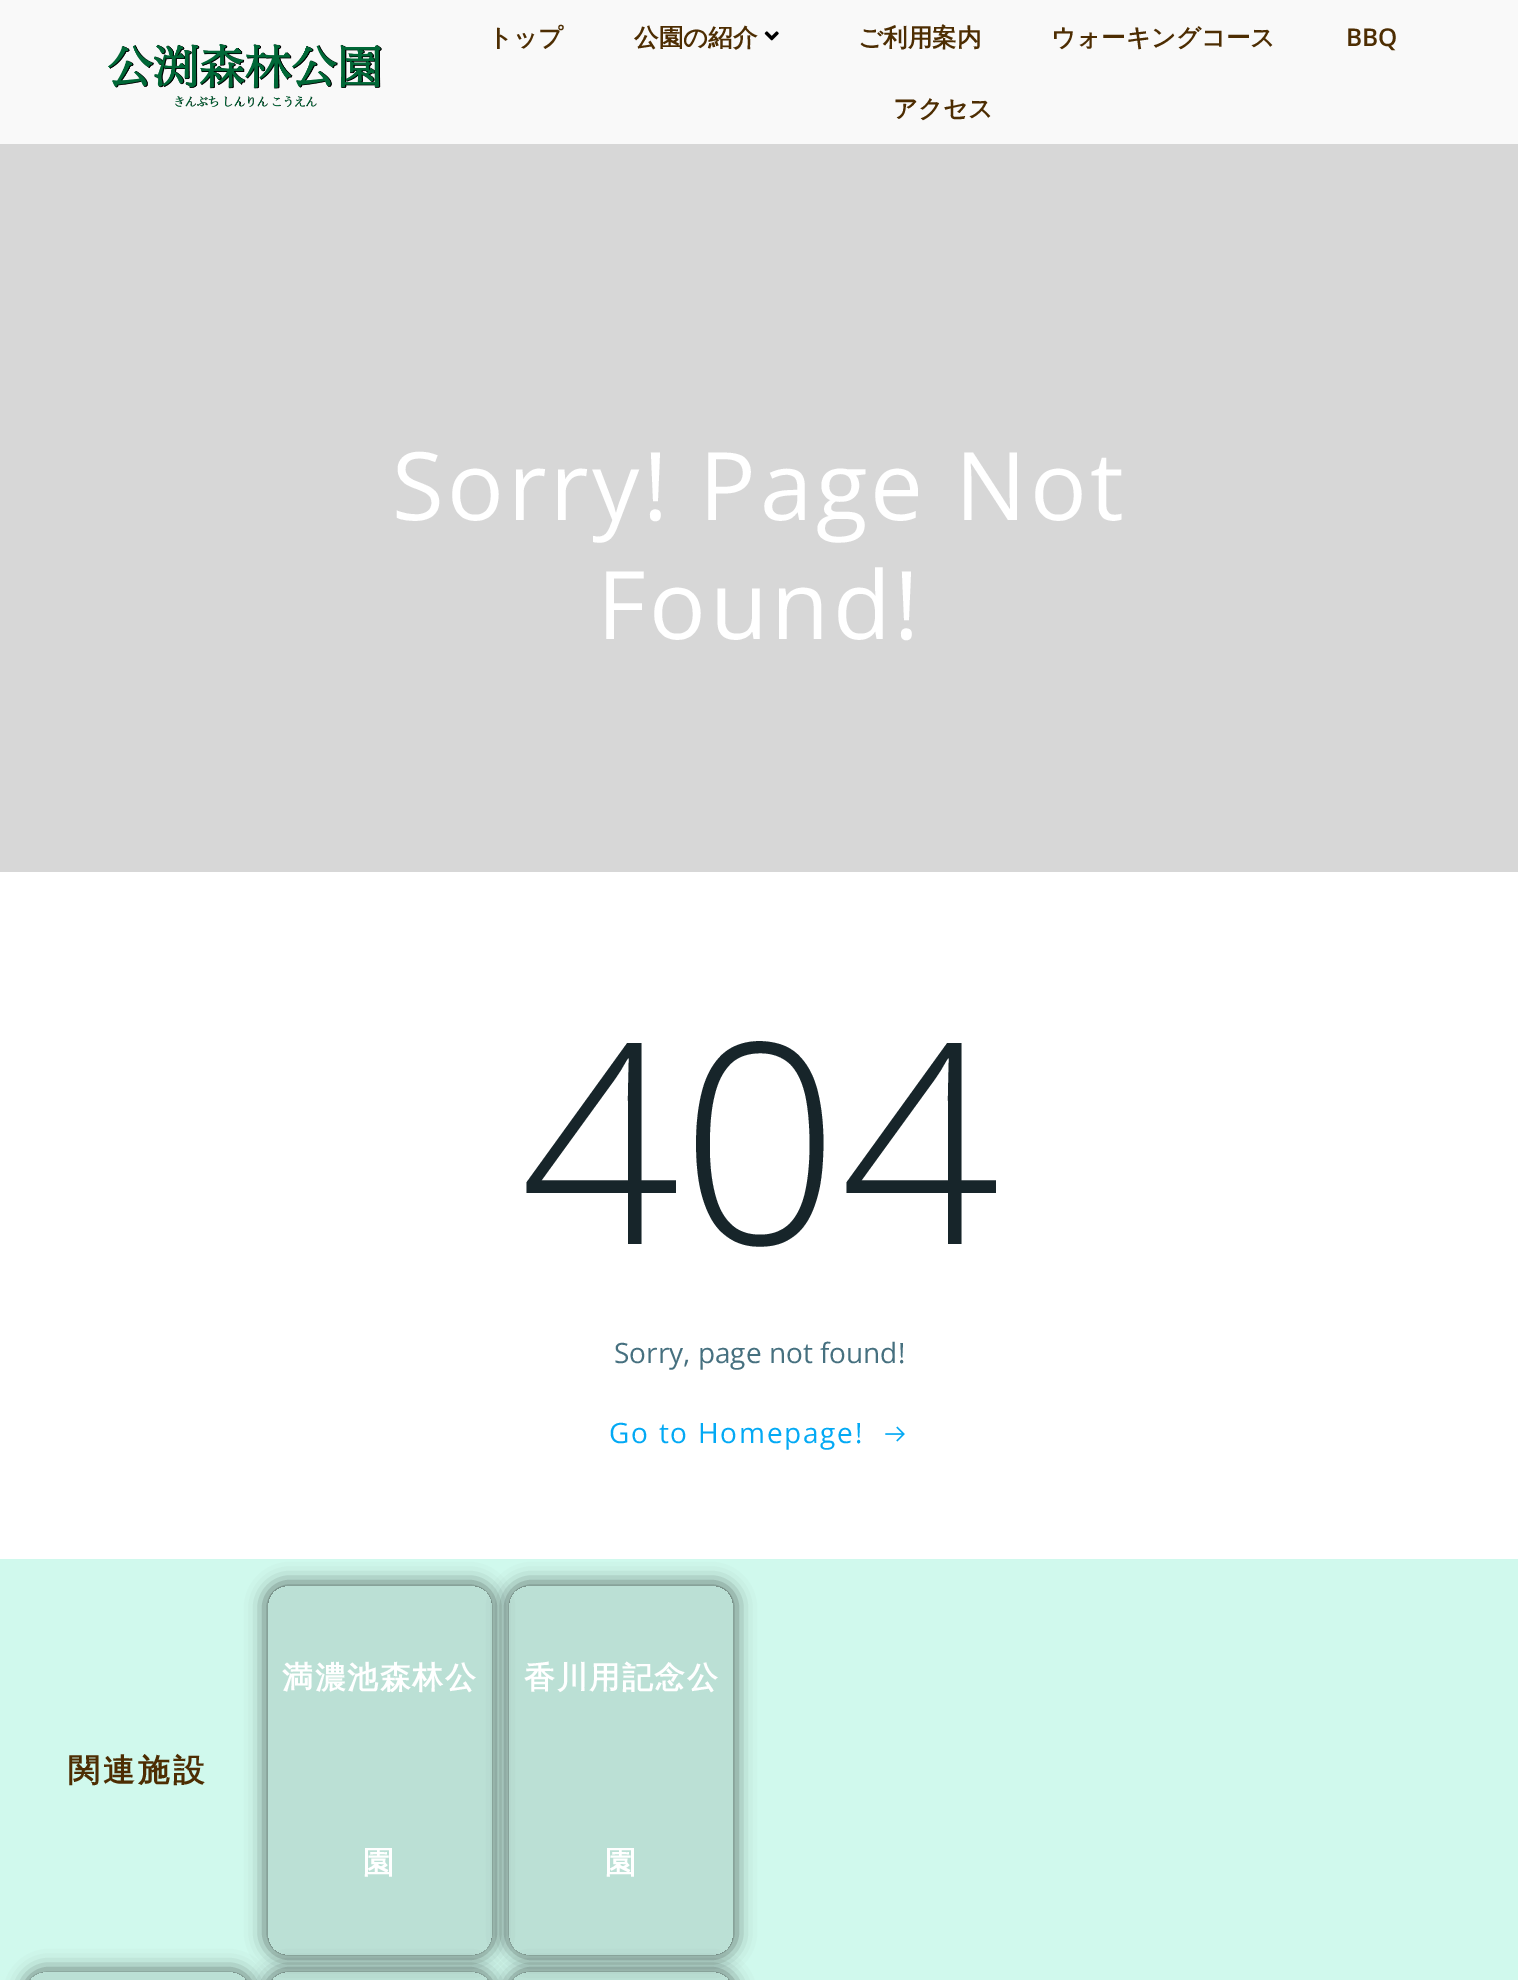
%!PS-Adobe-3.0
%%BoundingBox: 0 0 1518 1980
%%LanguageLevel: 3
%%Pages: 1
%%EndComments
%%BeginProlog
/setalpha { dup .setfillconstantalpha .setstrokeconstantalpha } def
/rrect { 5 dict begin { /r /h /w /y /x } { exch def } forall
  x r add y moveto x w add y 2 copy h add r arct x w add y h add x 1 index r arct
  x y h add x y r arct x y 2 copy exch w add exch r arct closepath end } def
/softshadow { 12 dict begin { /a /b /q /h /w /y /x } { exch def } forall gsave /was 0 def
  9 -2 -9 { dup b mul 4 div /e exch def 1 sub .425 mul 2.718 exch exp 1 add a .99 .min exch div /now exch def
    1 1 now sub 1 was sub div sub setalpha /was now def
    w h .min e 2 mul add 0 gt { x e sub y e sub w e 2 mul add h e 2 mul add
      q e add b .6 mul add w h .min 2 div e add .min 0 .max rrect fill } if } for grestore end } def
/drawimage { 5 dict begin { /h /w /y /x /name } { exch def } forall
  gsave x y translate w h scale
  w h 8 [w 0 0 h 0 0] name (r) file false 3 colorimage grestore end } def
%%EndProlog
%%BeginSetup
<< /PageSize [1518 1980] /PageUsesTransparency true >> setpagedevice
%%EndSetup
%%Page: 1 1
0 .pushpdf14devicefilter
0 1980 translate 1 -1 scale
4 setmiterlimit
1 setgray
0 0 1518 1980 rectfill
0.976 setgray
0 0 1518 144 rectfill
(images/1.raw) 108 44 274 63 drawimage
(images/2.raw) 764 31 15 10 drawimage
0.843 setgray
0 144 1518 728 rectfill
(images/3.raw) 885 1426 20 16 drawimage
0.816 0.976 0.929 setrgbcolor
0 1559 1518 421 rectfill
gsave
newpath 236 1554 moveto 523 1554 lineto 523 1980 lineto 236 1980 lineto closepath 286 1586 moveto 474 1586 lineto 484 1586 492 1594 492 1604 curveto 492 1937 lineto 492 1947 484 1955 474 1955 curveto 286 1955 lineto 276 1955 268 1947 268 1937 curveto 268 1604 lineto 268 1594 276 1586 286 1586 curveto closepath eoclip newpath
0 setgray
264 1582 231 376 21 9 0.5 softshadow
grestore
0.1 setalpha
0 setgray
268 1586 224 369 18 rrect fill
gsave
newpath 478 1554 moveto 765 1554 lineto 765 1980 lineto 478 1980 lineto closepath 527 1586 moveto 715 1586 lineto 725 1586 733 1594 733 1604 curveto 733 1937 lineto 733 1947 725 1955 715 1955 curveto 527 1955 lineto 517 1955 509 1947 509 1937 curveto 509 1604 lineto 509 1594 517 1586 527 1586 curveto closepath eoclip newpath
1 setalpha
506 1582 231 376 21 9 0.5 softshadow
grestore
509 1586 224 369 18 rrect fill
gsave
newpath 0 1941 moveto 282 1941 lineto 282 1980 lineto 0 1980 lineto closepath 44 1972 moveto 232 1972 lineto 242 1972 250 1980 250 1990 curveto 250 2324 lineto 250 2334 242 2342 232 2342 curveto 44 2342 lineto 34 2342 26 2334 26 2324 curveto 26 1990 lineto 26 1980 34 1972 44 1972 curveto closepath eoclip newpath
1 setalpha
23 1969 231 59 21 9 0.5 softshadow
grestore
26 1972 224 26 18 rrect fill
gsave
newpath 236 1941 moveto 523 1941 lineto 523 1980 lineto 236 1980 lineto closepath 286 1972 moveto 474 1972 lineto 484 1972 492 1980 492 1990 curveto 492 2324 lineto 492 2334 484 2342 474 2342 curveto 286 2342 lineto 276 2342 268 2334 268 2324 curveto 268 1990 lineto 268 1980 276 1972 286 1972 curveto closepath eoclip newpath
1 setalpha
264 1969 231 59 21 9 0.5 softshadow
grestore
268 1972 224 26 18 rrect fill
gsave
newpath 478 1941 moveto 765 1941 lineto 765 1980 lineto 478 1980 lineto closepath 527 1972 moveto 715 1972 lineto 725 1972 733 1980 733 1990 curveto 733 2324 lineto 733 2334 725 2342 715 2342 curveto 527 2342 lineto 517 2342 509 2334 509 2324 curveto 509 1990 lineto 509 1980 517 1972 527 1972 curveto closepath eoclip newpath
1 setalpha
506 1969 231 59 21 9 0.5 softshadow
grestore
509 1972 224 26 18 rrect fill
/WenQuanYiZenHei-Bold [24.5 0 0 -24.5 0 0] selectfont
1 setalpha
0.302 0.176 0.008 setrgbcolor
488 46 moveto (トップ) show
634 46 moveto (公園の紹介) show
858 46 moveto (ご利用案内) show
1051 46 moveto (ウォーキングコース) show
/OpenSans-SemiBold [24.5 0 0 -24.5 0 0] selectfont
1346 46 moveto (BBQ) show
/WenQuanYiZenHei-Bold [24.5 0 0 -24.5 0 0] selectfont
893 117 moveto (アクセス) show
/OpenSans-Regular [94.5 0 0 -94.5 0 0] selectfont
1 setgray
392 520 moveto 3.5 0 (Sorry! Page Not) ashow
597 639 moveto 3.5 0 (Found!) ashow
/OpenSans-Light [280 0 0 -280 0 0] selectfont
0.09 0.145 0.165 setrgbcolor
520 1244 moveto (404) show
/OpenSans-Regular [28 0 0 -28 0 0] selectfont
0.275 0.439 0.498 setrgbcolor
614 1363 moveto (Sorry, page not found!) show
0.012 0.663 0.957 setrgbcolor
609 1443 moveto 1.75 0 (Go to Homepage!) ashow
/WenQuanYiZenHei-Bold [31.5 0 0 -31.5 0 0] selectfont
0.302 0.176 0.008 setrgbcolor
68 1781 moveto 3.5 0 (関連施設) ashow
/WenQuanYiZenHei-Bold [30.75 0 0 -30.75 0 0] selectfont
1 setgray
282 1688 moveto 1.75 0 (満濃池森林公) ashow
363 1873 moveto 1.75 0 (園) ashow
524 1688 moveto 1.75 0 (香川用記念公) ashow
605 1873 moveto 1.75 0 (園) ashow
.poppdf14devicefilter showpage
%%EOF
